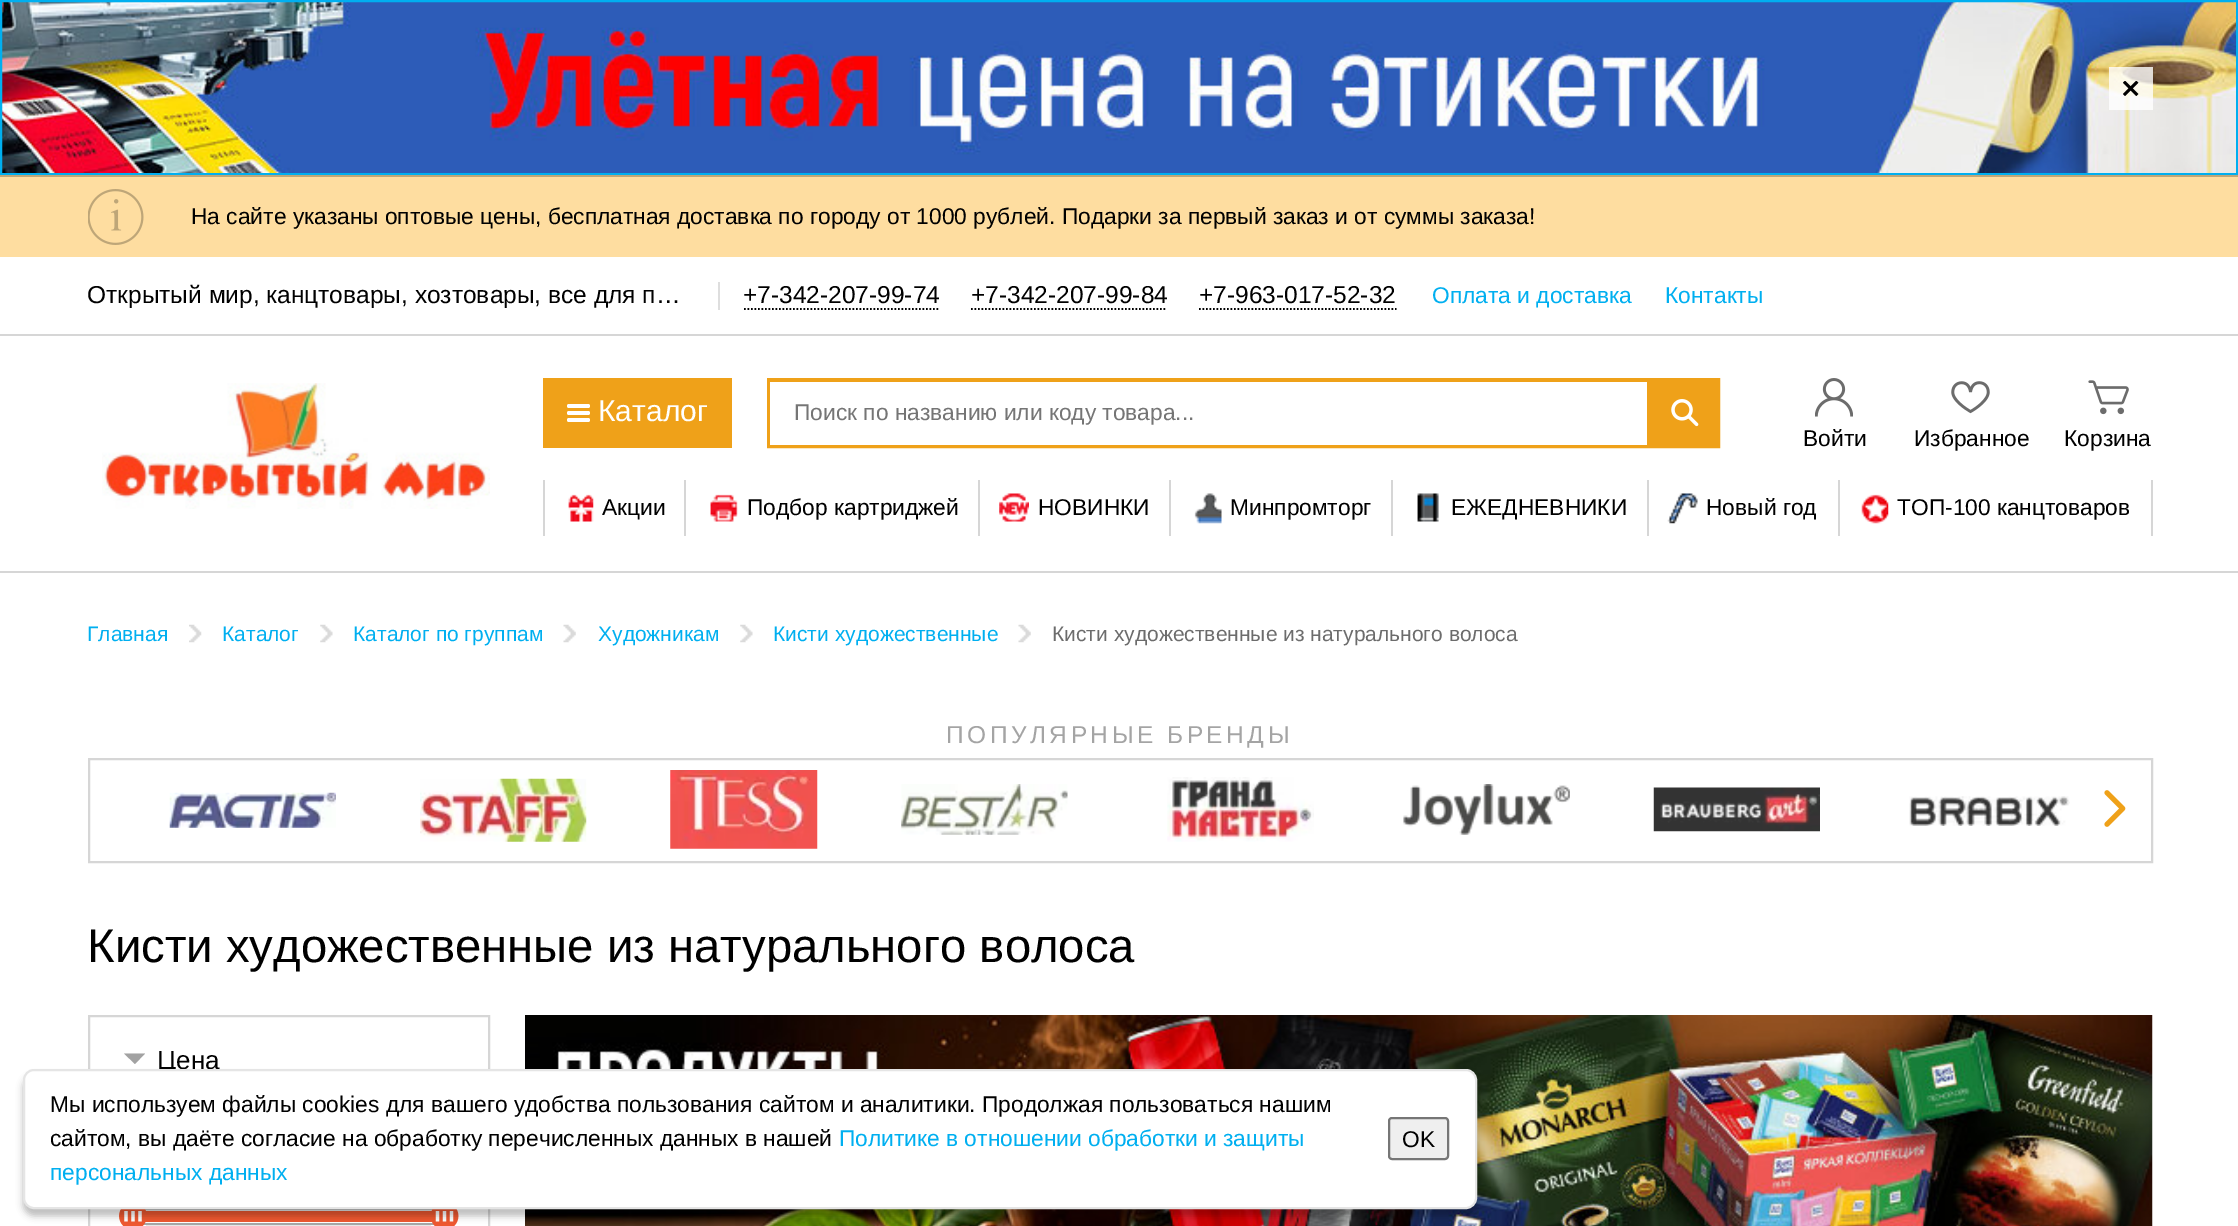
%!PS-Adobe-3.0
%%BoundingBox: 0 0 2238 1226
%%LanguageLevel: 3
%%Pages: 1
%%EndComments
%%BeginProlog
/setalpha { dup .setfillconstantalpha .setstrokeconstantalpha } def
/rrect { 5 dict begin { /r /h /w /y /x } { exch def } forall
  x r add y moveto x w add y 2 copy h add r arct x w add y h add x 1 index r arct
  x y h add x y r arct x y 2 copy exch w add exch r arct closepath end } def
/softshadow { 12 dict begin { /a /b /q /h /w /y /x } { exch def } forall gsave /was 0 def
  9 -2 -9 { dup b mul 4 div /e exch def 1 sub .425 mul 2.718 exch exp 1 add a .99 .min exch div /now exch def
    1 1 now sub 1 was sub div sub setalpha /was now def
    w h .min e 2 mul add 0 gt { x e sub y e sub w e 2 mul add h e 2 mul add
      q e add b .6 mul add w h .min 2 div e add .min 0 .max rrect fill } if } for grestore end } def
/drawimage { 5 dict begin { /h /w /y /x /name } { exch def } forall
  gsave x y translate w h scale
  w h 8 [w 0 0 h 0 0] name (r) file false 3 colorimage grestore end } def
%%EndProlog
%%BeginSetup
<< /PageSize [2238 1226] /PageUsesTransparency true >> setpagedevice
%%EndSetup
%%Page: 1 1
0 .pushpdf14devicefilter
0 1226 translate 1 -1 scale
4 setmiterlimit
1 setgray
0 0 2238 1226 rectfill
(images/1.raw) 2 2 2234 171 drawimage
0 0.686 0.941 setrgbcolor
2 setlinewidth
1 1 2236 173 rectstroke
0.8 setalpha
1 setgray
2109 67 44 43 rectfill
1 setalpha
(images/2.raw) 2123 81 16 15 drawimage
0.996 0.867 0.627 setrgbcolor
0 177 2238 80 rectfill
0.749 0.651 0.471 setrgbcolor
0 175 2238 2 rectfill
(images/3.raw) 88 189 56 56 drawimage
0.839 setgray
0 334 2238 2 rectfill
0.871 setgray
718 282 2 28 rectfill
0 setgray
1.8 setlinewidth
[1.75 1.75] 0 setdash
newpath 744 309 moveto 940 309 lineto stroke
newpath 971 309 moveto 1167 309 lineto stroke
newpath 1199 309 moveto 1396.5 309 lineto stroke
0.839 setgray
0 571 2238 2 rectfill
(images/4.raw) 102 383 388 126 drawimage
0.937 0.631 0.098 setrgbcolor
543 378 189 70 rectfill
1 setgray
567 411 23 4 2 rrect fill
567 404 23 4 2 rrect fill
567 418 23 4 2 rrect fill
0.937 0.631 0.098 setrgbcolor
4 setlinewidth
[] 0 setdash
769 380 949 66 rectstroke
1 setgray
770 382 877 63 rectfill
0.937 0.631 0.098 setrgbcolor
1647 382 69 62 rectfill
(images/5.raw) 1671 399 28 28 drawimage
(images/6.raw) 1815 378 38 39 drawimage
(images/7.raw) 1951 381 39 33 drawimage
(images/8.raw) 2088 380 41 35 drawimage
0.839 setgray
684 480 2 56 rectfill
543 480 2 56 rectfill
(images/9.raw) 568 494 26 28 drawimage
978 480 2 56 rectfill
(images/10.raw) 710 494 28 28 drawimage
1169 480 2 56 rectfill
(images/11.raw) 999 493 30 29 drawimage
1391 480 2 56 rectfill
(images/12.raw) 1194 493 28 31 drawimage
1647 480 2 56 rectfill
(images/13.raw) 1417 493 22 29 drawimage
1838 480 2 56 rectfill
(images/14.raw) 1667 493 31 31 drawimage
2151 480 2 56 rectfill
(images/15.raw) 1861 494 28 30 drawimage
(images/16.raw) 189 624 13 19 drawimage
(images/17.raw) 320 624 13 19 drawimage
(images/18.raw) 563 624 13 19 drawimage
(images/19.raw) 740 624 13 19 drawimage
(images/18.raw) 1018 624 13 19 drawimage
2 setlinewidth
89 759 2063 103 rectstroke
(images/20.raw) 169 792 167 36 drawimage
(images/21.raw) 420 778 167 64 drawimage
(images/22.raw) 670 770 148 79 drawimage
(images/23.raw) 901 784 167 51 drawimage
(images/24.raw) 1167 777 147 65 drawimage
(images/25.raw) 1403 784 167 51 drawimage
(images/26.raw) 1653 787 167 45 drawimage
(images/27.raw) 1909 796 161 30 drawimage
(images/28.raw) 2104 790 22 37 drawimage
89 1016 400 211 rectstroke
0.635 setgray
newpath 124 1053.5 moveto 145 1053.5 lineto 135 1064 lineto closepath fill
0.651 setgray
125 1209 327 15 rectstroke
0.933 0.345 0.188 setrgbcolor
145 1211 287 11 rectfill
(images/29.raw) 119 1209 27 17 drawimage
(images/30.raw) 431 1209 28 17 drawimage
(images/31.raw) 525 1015 1628 211 drawimage
0 setgray
23 1076 1454 140 11 3.5 0.25 softshadow
/LiberationSans-Regular [22.75 0 0 -22.75 0 0] selectfont
191 224 moveto (На сайте указаны оптовые цены, бесплатная доставка по городу от 1000 рублей. Подарки за первый заказ и от суммы заказа!) show
gsave
88 282 605 28 rectclip
/LiberationSans-Regular [24.5 0 0 -24.5 0 0] selectfont
87 303 moveto (Открытый мир, канцтовары, хозтовары, все для п…) show
grestore
/LiberationSans-Regular [24.5 0 0 -24.5 0 0] selectfont
743 303 moveto (+7-342-207-99-74) show
971 303 moveto (+7-342-207-99-84) show
1199 303 moveto (+7-963-017-52-32) show
/LiberationSans-Regular [22.75 0 0 -22.75 0 0] selectfont
0 0.686 0.941 setrgbcolor
1432 303 moveto (Оплата и доставка) show
1665 303 moveto (Контакты) show
/LiberationSans-Regular [30 0 0 -30 0 0] selectfont
1 setgray
598 421 moveto (Каталог) show
/LiberationSans-Regular [22.75 0 0 -22.75 0 0] selectfont
0.459 setgray
794 420 moveto (Поиск по названию или коду товара...) show
0 setgray
1803 446 moveto (Войти) show
1914 446 moveto (Избранное) show
2064 446 moveto (Корзина) show
602 515 moveto (Акции) show
747 515 moveto (Подбор картриджей) show
1038 515 moveto (НОВИНКИ) show
1230 515 moveto (Минпромторг) show
1451 515 moveto (ЕЖЕДНЕВНИКИ) show
1706 515 moveto (Новый год) show
1897 515 moveto (ТОП-100 канцтоваров) show
/LiberationSans-Regular [21 0 0 -21 0 0] selectfont
0 0.686 0.941 setrgbcolor
87 641 moveto (Главная) show
222 641 moveto (Каталог) show
353 641 moveto (Каталог по группам) show
598 641 moveto (Художникам) show
773 641 moveto (Кисти художественные) show
0.424 setgray
1052 641 moveto (Кисти художественные из натурального волоса) show
/LiberationSans-Regular [24.5 0 0 -24.5 0 0] selectfont
0.643 setgray
946 743 moveto 3.5 0 (ПОПУЛЯРНЫЕ БРЕНДЫ) ashow
/LiberationSans-Regular [47.25 0 0 -47.25 0 0] selectfont
0 setgray
87 962 moveto (Кисти художественные из натурального волоса) show
/LiberationSans-Regular [26 0 0 -26 0 0] selectfont
157 1069 moveto (Цена) show
1 setgray
24 1070 1452 138 10 rrect gsave fill grestore
0.898 setgray
stroke
/LiberationSans-Regular [22.75 0 0 -22.75 0 0] selectfont
0 setgray
50 1112 moveto (Мы используем файлы cookies для вашего удобства пользования сайтом и аналитики. Продолжая пользоваться нашим) show
50 1146 moveto (сайтом, вы даёте согласие на обработку перечисленных данных в нашей) show
0 0.686 0.941 setrgbcolor
839 1146 moveto (Политике в отношении обработки и защиты) show
50 1180 moveto (персональных данных) show
0.937 setgray
1389 1118 59 41 3 rrect gsave fill grestore
0.463 setgray
stroke
0 setgray
1402 1147 moveto (OK) show
.poppdf14devicefilter showpage
%%EOF
